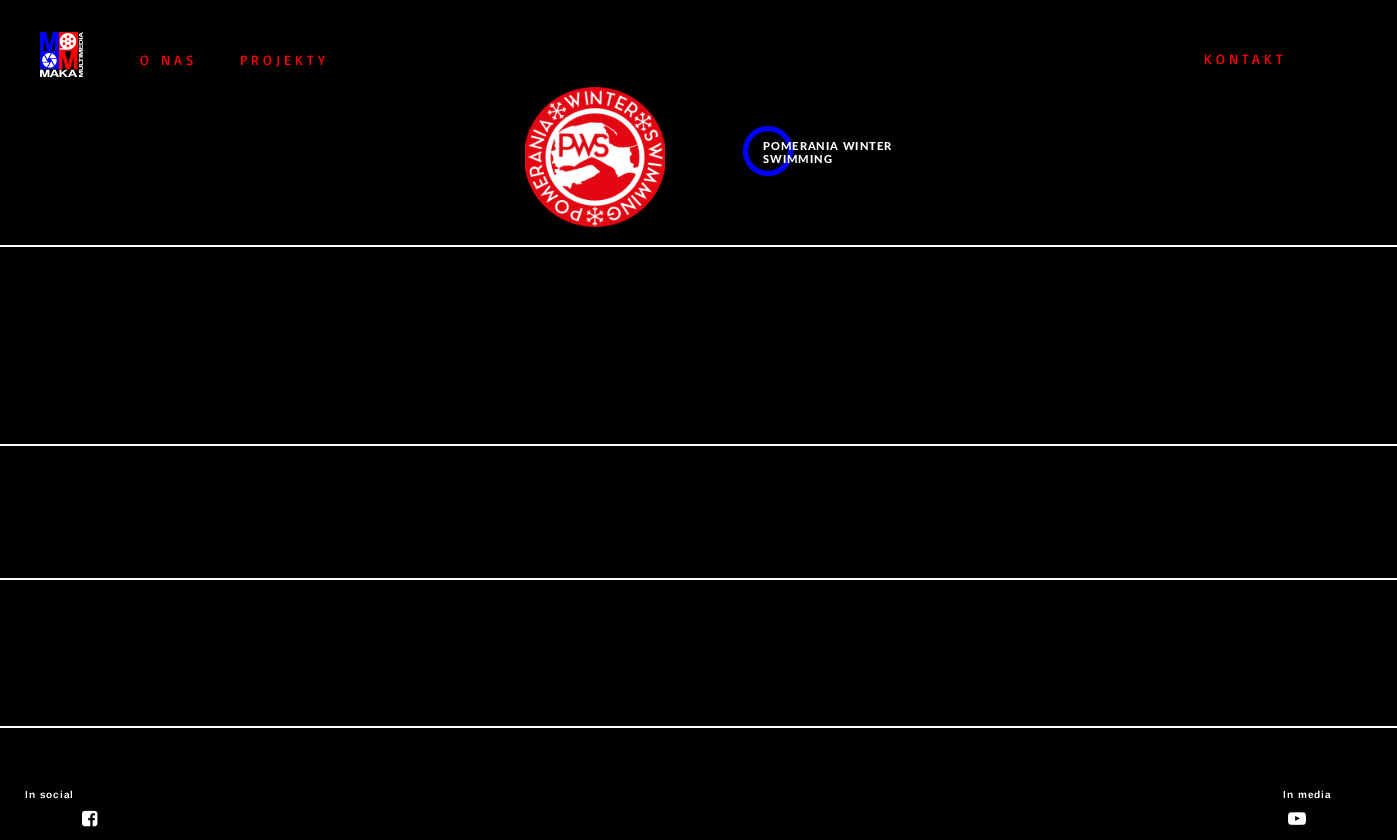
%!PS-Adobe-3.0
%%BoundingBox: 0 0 1397 840
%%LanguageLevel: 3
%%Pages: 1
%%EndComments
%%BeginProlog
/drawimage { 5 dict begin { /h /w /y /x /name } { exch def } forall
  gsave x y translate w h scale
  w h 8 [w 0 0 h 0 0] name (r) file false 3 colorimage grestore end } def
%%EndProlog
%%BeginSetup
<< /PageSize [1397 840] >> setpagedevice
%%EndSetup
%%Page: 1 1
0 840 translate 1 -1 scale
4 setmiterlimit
0 setgray
0 0 1397 840 rectfill
(images/1.raw) 40 32 43 45 drawimage
(images/2.raw) 82 810 16 17 drawimage
(images/3.raw) 1288 812 18 13 drawimage
(images/4.raw) 525 87 140 140 drawimage
0 0 1 setrgbcolor
5 setlinewidth
newpath 768 151 22.5 0 360 arc closepath stroke
1 setgray
0 245 1397 2 rectfill
0 444 1397 2 rectfill
0 578 1397 2 rectfill
0 726 1397 2 rectfill
/Basic-Regular [14 0 0 -14 0 0] selectfont
1 0 0 setrgbcolor
140 65 moveto 4 0 (O NAS) ashow
240 65 moveto 4 0 (PROJEKTY) ashow
1204 64 moveto 4 0 (KONTAKT) ashow
/LiberationSans-Bold [10 0 0 -10 0 0] selectfont
1 setgray
25 798 moveto 1 0 (In social) ashow
1283 798 moveto 1 0 (In media) ashow
/Lato-Black [11 0 0 -11 0 0] selectfont
763 150 moveto 1 0 (POMERANIA WINTER) ashow
763 163 moveto 1 0 (SWIMMING) ashow
showpage
%%EOF
